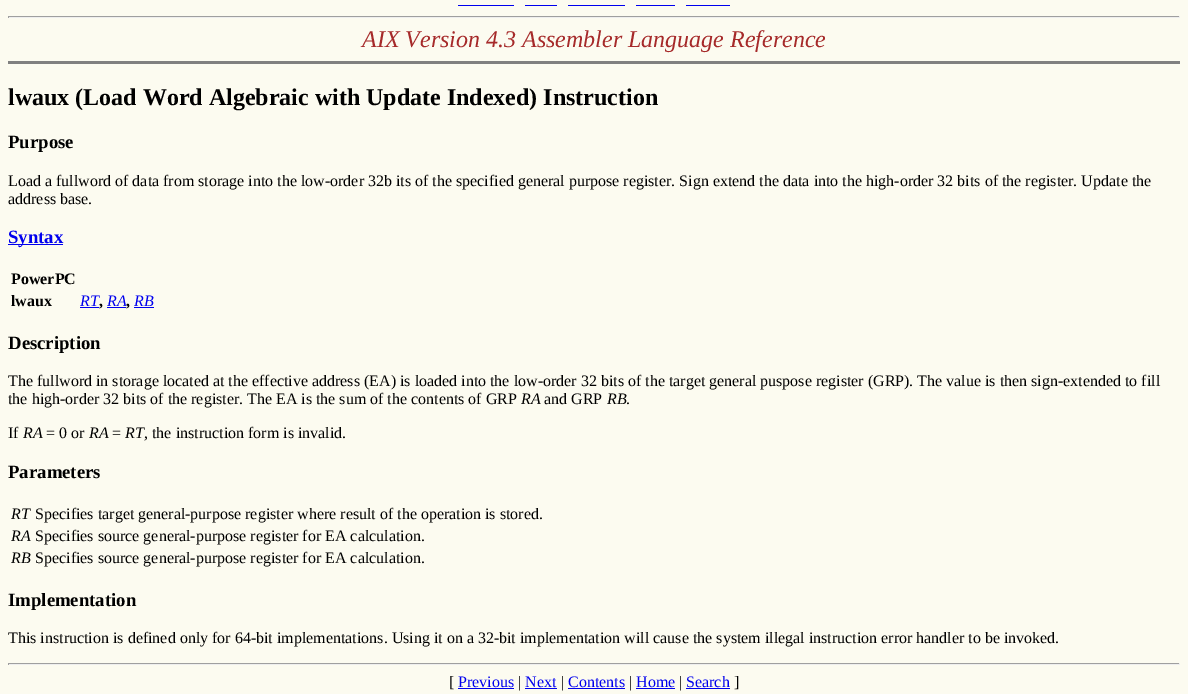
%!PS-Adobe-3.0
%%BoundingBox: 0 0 1188 694
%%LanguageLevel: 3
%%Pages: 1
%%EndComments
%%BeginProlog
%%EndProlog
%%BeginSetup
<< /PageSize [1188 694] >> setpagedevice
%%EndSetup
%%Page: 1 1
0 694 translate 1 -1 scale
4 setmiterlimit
0.988 0.984 0.941 setrgbcolor
0 0 1188 694 rectfill
0 0 0.933 setrgbcolor
458 5 56 1 rectfill
525 5 32 1 rectfill
568 5 57 1 rectfill
636 5 39 1 rectfill
686 5 44 1 rectfill
0.624 setgray
8 16 1172 1 rectfill
0.933 setgray
1179 16 1 2 rectfill
8 17 1172 1 rectfill
0.624 setgray
8 16 1 2 rectfill
0.502 setgray
8 61 1172 3 rectfill
0 0 0.933 setrgbcolor
8 244 55 1 rectfill
80 307 19 1 rectfill
107 307 19 1 rectfill
134 307 20 1 rectfill
0.624 setgray
8 663 1172 1 rectfill
0.933 setgray
1179 663 1 2 rectfill
8 664 1172 1 rectfill
0.624 setgray
8 663 1 2 rectfill
0 0 0.933 setrgbcolor
458 688 56 1 rectfill
525 688 32 1 rectfill
568 688 57 1 rectfill
636 688 39 1 rectfill
686 688 44 1 rectfill
/LiberationSerif-Italic [24 0 0 -24 0 0] selectfont
0.651 0.165 0.165 setrgbcolor
362 47 moveto (AIX Version 4.3 Assembler Language Reference) show
/LiberationSerif-Bold [24 0 0 -24 0 0] selectfont
0 setgray
8 105 moveto (lwaux \(Load Word Algebraic with Update Indexed\) Instruction) show
/LiberationSerif-Bold [18.75 0 0 -18.75 0 0] selectfont
8 148 moveto (Purpose) show
/LiberationSerif-Regular [16 0 0 -16 0 0] selectfont
8 186 moveto (Load a fullword of data from storage into the low-order 32b its of the specified general purpose register. Sign extend the data into the high-order 32 bits of the register. Update the) show
8 204 moveto (address base.) show
/LiberationSerif-Bold [18.75 0 0 -18.75 0 0] selectfont
0 0 0.933 setrgbcolor
8 243 moveto (Syntax) show
/LiberationSerif-Bold [16 0 0 -16 0 0] selectfont
0 setgray
11 284 moveto (PowerPC) show
11 306 moveto (lwaux) show
/LiberationSerif-Italic [16 0 0 -16 0 0] selectfont
0 0 0.933 setrgbcolor
80 306 moveto (RT) show
107 306 moveto (RA) show
134 306 moveto (RB) show
/LiberationSerif-Bold [16 0 0 -16 0 0] selectfont
0 setgray
99 306 moveto (,) show
126 306 moveto (,) show
/LiberationSerif-Bold [18.75 0 0 -18.75 0 0] selectfont
8 349 moveto (Description) show
/LiberationSerif-Regular [16 0 0 -16 0 0] selectfont
8 386 moveto (The fullword in storage located at the effective address \(EA\) is loaded into the low-order 32 bits of the target general puspose register \(GRP\). The value is then sign-extended to fill) show
8 404 moveto (the high-order 32 bits of the register. The EA is the sum of the contents of GRP) show
/LiberationSerif-Italic [16 0 0 -16 0 0] selectfont
521 404 moveto (RA) show
/LiberationSerif-Regular [16 0 0 -16 0 0] selectfont
544 404 moveto (and GRP) show
/LiberationSerif-Italic [16 0 0 -16 0 0] selectfont
607 404 moveto (RB) show
/LiberationSerif-Regular [16 0 0 -16 0 0] selectfont
626 404 moveto (.) show
8 438 moveto (If) show
/LiberationSerif-Italic [16 0 0 -16 0 0] selectfont
23 438 moveto (RA) show
/LiberationSerif-Regular [16 0 0 -16 0 0] selectfont
46 438 moveto (= 0 or) show
/LiberationSerif-Italic [16 0 0 -16 0 0] selectfont
89 438 moveto (RA) show
/LiberationSerif-Regular [16 0 0 -16 0 0] selectfont
112 438 moveto (=) show
/LiberationSerif-Italic [16 0 0 -16 0 0] selectfont
125 438 moveto (RT) show
/LiberationSerif-Regular [16 0 0 -16 0 0] selectfont
144 438 moveto (, the instruction form is invalid.) show
/LiberationSerif-Bold [18.75 0 0 -18.75 0 0] selectfont
8 478 moveto (Parameters) show
/LiberationSerif-Italic [16 0 0 -16 0 0] selectfont
11 519 moveto (RT) show
/LiberationSerif-Regular [16 0 0 -16 0 0] selectfont
35 519 moveto (Specifies target general-purpose register where result of the operation is stored.) show
/LiberationSerif-Italic [16 0 0 -16 0 0] selectfont
11 541 moveto (RA) show
/LiberationSerif-Regular [16 0 0 -16 0 0] selectfont
35 541 moveto (Specifies source general-purpose register for EA calculation.) show
/LiberationSerif-Italic [16 0 0 -16 0 0] selectfont
11 563 moveto (RB) show
/LiberationSerif-Regular [16 0 0 -16 0 0] selectfont
35 563 moveto (Specifies source general-purpose register for EA calculation.) show
/LiberationSerif-Bold [18.75 0 0 -18.75 0 0] selectfont
8 606 moveto (Implementation) show
/LiberationSerif-Regular [16 0 0 -16 0 0] selectfont
8 643 moveto (This instruction is defined only for 64-bit implementations. Using it on a 32-bit implementation will cause the system illegal instruction error handler to be invoked.) show
449 687 moveto ([) show
0 0 0.933 setrgbcolor
458 687 moveto (Previous) show
0 setgray
518 687 moveto (|) show
0 0 0.933 setrgbcolor
525 687 moveto (Next) show
0 setgray
561 687 moveto (|) show
0 0 0.933 setrgbcolor
568 687 moveto (Contents) show
0 setgray
629 687 moveto (|) show
0 0 0.933 setrgbcolor
636 687 moveto (Home) show
0 setgray
679 687 moveto (|) show
0 0 0.933 setrgbcolor
686 687 moveto (Search) show
0 setgray
734 687 moveto (]) show
showpage
%%EOF
